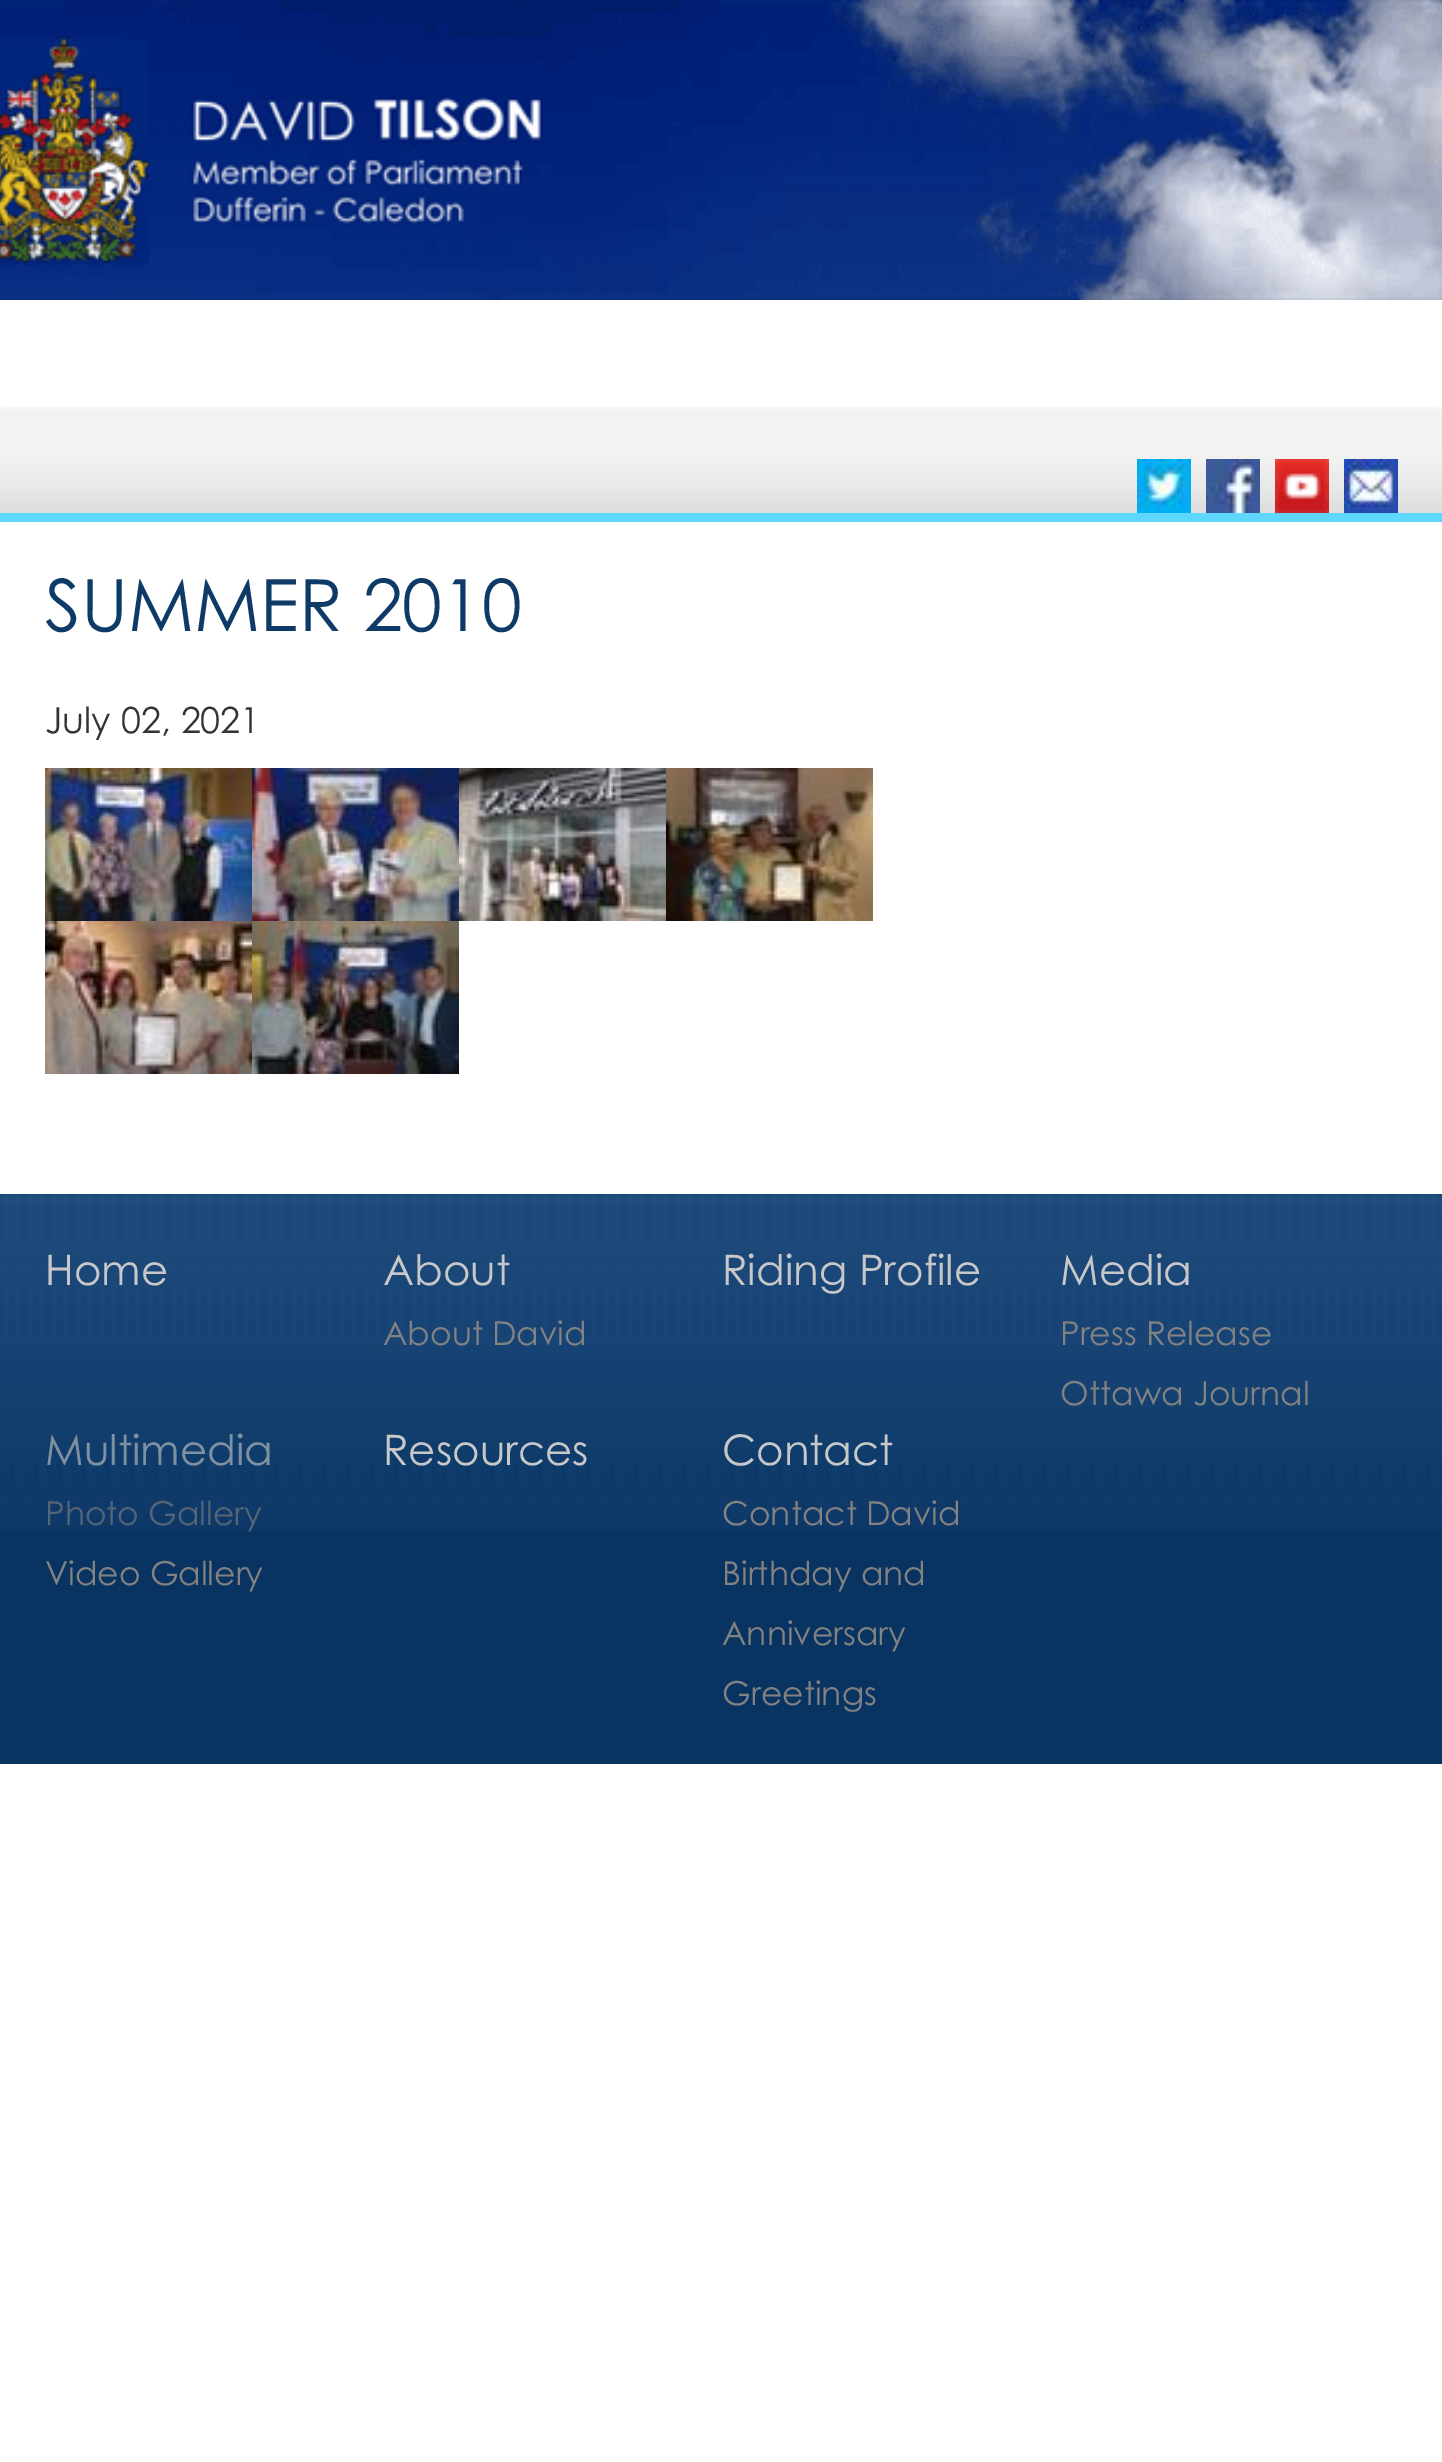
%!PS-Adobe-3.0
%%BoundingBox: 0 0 1442 2462
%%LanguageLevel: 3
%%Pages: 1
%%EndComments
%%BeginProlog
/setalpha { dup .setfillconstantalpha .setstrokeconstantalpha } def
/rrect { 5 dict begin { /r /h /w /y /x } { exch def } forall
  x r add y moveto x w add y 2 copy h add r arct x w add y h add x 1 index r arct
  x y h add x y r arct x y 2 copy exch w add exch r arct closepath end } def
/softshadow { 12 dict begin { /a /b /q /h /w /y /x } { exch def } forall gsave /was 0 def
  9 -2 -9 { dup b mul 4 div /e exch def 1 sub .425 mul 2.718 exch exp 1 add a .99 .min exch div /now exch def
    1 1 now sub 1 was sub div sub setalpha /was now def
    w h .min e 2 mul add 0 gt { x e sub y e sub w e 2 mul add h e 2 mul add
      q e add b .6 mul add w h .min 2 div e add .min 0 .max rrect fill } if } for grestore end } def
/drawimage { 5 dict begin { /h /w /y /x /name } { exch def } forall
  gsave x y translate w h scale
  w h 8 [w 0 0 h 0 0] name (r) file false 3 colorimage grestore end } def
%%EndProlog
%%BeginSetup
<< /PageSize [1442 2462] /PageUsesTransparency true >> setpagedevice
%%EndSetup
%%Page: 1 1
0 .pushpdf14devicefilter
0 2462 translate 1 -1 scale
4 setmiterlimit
1 setgray
0 0 1442 2462 rectfill
(images/1.raw) 0 0 1442 300 drawimage
gsave
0 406 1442 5 rectclip
0 setgray
3 417 1437 777 0 7.5 0.3 softshadow
grestore
(images/2.raw) 0 411 1442 102 drawimage
0.365 0.843 0.988 setrgbcolor
0 513 1442 9 rectfill
(images/3.raw) 1137 459 54 54 drawimage
(images/4.raw) 1206 459 54 54 drawimage
(images/5.raw) 1275 459 54 54 drawimage
(images/6.raw) 1344 459 54 54 drawimage
(images/7.raw) 45 768 207 153 drawimage
(images/8.raw) 252 768 207 153 drawimage
(images/9.raw) 459 768 207 153 drawimage
(images/10.raw) 666 768 207 153 drawimage
(images/11.raw) 45 921 207 153 drawimage
(images/12.raw) 252 921 207 153 drawimage
0.035 0.204 0.38 setrgbcolor
0 1530 1442 234 rectfill
(images/13.raw) 0 1194 1442 336 drawimage
/CenturyGothic-Regular [72 0 0 -72 0 0] selectfont
0.055 0.227 0.408 setrgbcolor
45 631 moveto (SUMMER 2010) show
/CenturyGothic-Regular [36 0 0 -36 0 0] selectfont
0.2 setgray
45 733 moveto (July 02, 2021) show
/CenturyGothic-Regular [42 0 0 -42 0 0] selectfont
0.784 setgray
45 1285 moveto (Home) show
383 1285 moveto (About) show
/CenturyGothic-Regular [33 0 0 -33 0 0] selectfont
0.51 setgray
383 1345 moveto (About David) show
/CenturyGothic-Regular [42 0 0 -42 0 0] selectfont
0.784 setgray
722 1285 moveto (Riding Profile) show
1060 1285 moveto (Media) show
/CenturyGothic-Regular [33 0 0 -33 0 0] selectfont
0.51 setgray
1060 1345 moveto (Press Release) show
1060 1405 moveto (Ottawa Journal) show
/CenturyGothic-Regular [42 0 0 -42 0 0] selectfont
0.498 0.565 0.639 setrgbcolor
45 1465 moveto (Multimedia) show
/CenturyGothic-Regular [33 0 0 -33 0 0] selectfont
0.329 0.396 0.471 setrgbcolor
45 1525 moveto (Photo Gallery) show
0.51 setgray
45 1585 moveto (Video Gallery) show
/CenturyGothic-Regular [42 0 0 -42 0 0] selectfont
0.784 setgray
383 1465 moveto (Resources) show
722 1465 moveto (Contact) show
/CenturyGothic-Regular [33 0 0 -33 0 0] selectfont
0.51 setgray
722 1525 moveto (Contact David) show
722 1585 moveto (Birthday and) show
722 1645 moveto (Anniversary) show
722 1705 moveto (Greetings) show
.poppdf14devicefilter showpage
%%EOF
